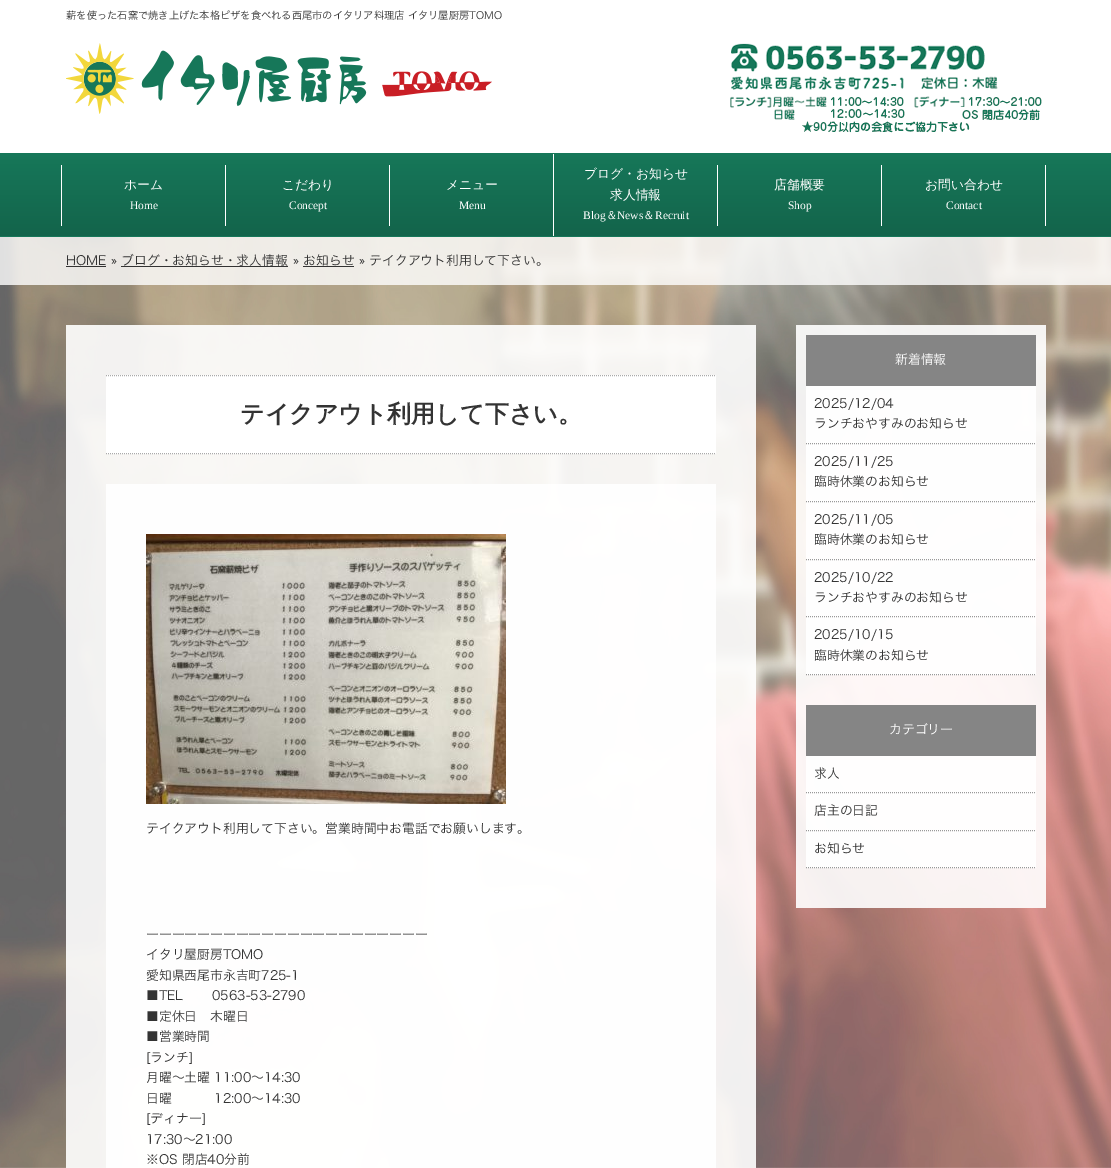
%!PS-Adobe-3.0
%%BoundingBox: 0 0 1111 1168
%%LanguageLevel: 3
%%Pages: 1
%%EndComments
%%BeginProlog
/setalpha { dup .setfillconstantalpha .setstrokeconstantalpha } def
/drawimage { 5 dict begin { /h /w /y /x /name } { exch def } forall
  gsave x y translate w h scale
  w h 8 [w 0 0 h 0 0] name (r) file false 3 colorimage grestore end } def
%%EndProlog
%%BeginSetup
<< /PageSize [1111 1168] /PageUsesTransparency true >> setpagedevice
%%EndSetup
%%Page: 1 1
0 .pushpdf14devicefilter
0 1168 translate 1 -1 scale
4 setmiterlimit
1 setgray
0 0 1111 1168 rectfill
(images/1.raw) 66 43 426 71 drawimage
(images/2.raw) 730 43 312 90 drawimage
gsave newpath 0 154 moveto 1111 154 lineto 1111 236 lineto 0 236 lineto closepath clip newpath
<< /ShadingType 2 /ColorSpace /DeviceRGB /Coords [556 154 556 236] /Extend [true true] /Function << /FunctionType 3 /Domain [0 1] /Functions [<< /FunctionType 2 /Domain [0 1] /C0 [0.086 0.467 0.349] /C1 [0.086 0.467 0.349] /N 1 >> << /FunctionType 2 /Domain [0 1] /C0 [0.086 0.467 0.349] /C1 [0.075 0.392 0.294] /N 1 >>] /Bounds [0.01] /Encode [0 1 0 1] >> >> shfill grestore
gsave newpath 0 236 moveto 1111 236 lineto 1111 237 lineto 0 237 lineto closepath clip newpath
<< /ShadingType 2 /ColorSpace /DeviceRGB /Coords [556 236 556 318] /Extend [true true] /Function << /FunctionType 3 /Domain [0 1] /Functions [<< /FunctionType 2 /Domain [0 1] /C0 [0.086 0.467 0.349] /C1 [0.086 0.467 0.349] /N 1 >> << /FunctionType 2 /Domain [0 1] /C0 [0.086 0.467 0.349] /C1 [0.075 0.392 0.294] /N 1 >>] /Bounds [0.01] /Encode [0 1 0 1] >> >> shfill grestore
0.086 0.467 0.349 setrgbcolor
0 153 1111 1 rectfill
1 setgray
61 165 1 61 rectfill
225 165 1 61 rectfill
389 165 1 61 rectfill
553 154 1 82 rectfill
717 165 1 61 rectfill
1045 165 1 61 rectfill
881 165 1 61 rectfill
(images/3.raw) 0 237 1111 931 drawimage
0.8 setalpha
0 237 1111 48 rectfill
1 setalpha
0.2 setgray
66 266 40 1 rectfill
121 266 167 1 rectfill
303 266 51 1 rectfill
0.9 setalpha
1 setgray
66 325 690 843 rectfill
1 setalpha
106 375 610 79 rectfill
0.667 setgray
[1 1] 0 setdash
newpath 106 375.5 moveto 716 375.5 lineto stroke
newpath 106 453.5 moveto 716 453.5 lineto stroke
0.9 setalpha
1 setgray
106 484 610 684 rectfill
1 setalpha
(images/4.raw) 146 534 360 270 drawimage
0.9 setalpha
796 325 250 583 rectfill
1 setalpha
0.522 setgray
806 335 230 51 rectfill
0.9 setalpha
1 setgray
806 386 230 289 rectfill
1 setalpha
0.6 setgray
newpath 806 443.5 moveto 1036 443.5 lineto stroke
newpath 806 501.5 moveto 1036 501.5 lineto stroke
newpath 806 559.5 moveto 1036 559.5 lineto stroke
newpath 806 616.5 moveto 1036 616.5 lineto stroke
newpath 806 674.5 moveto 1036 674.5 lineto stroke
0.522 setgray
806 705 230 51 rectfill
0.9 setalpha
1 setgray
806 756 230 112 rectfill
1 setalpha
0.6 setgray
newpath 806 792.5 moveto 1036 792.5 lineto stroke
newpath 806 830.5 moveto 1036 830.5 lineto stroke
newpath 806 867.5 moveto 1036 867.5 lineto stroke
/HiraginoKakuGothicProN-Light [10.25 0 0 -10.25 0 0] selectfont
0.2 setgray
66 19 moveto (薪を使った石窯で焼き上げた本格ピザを食べれる西尾市のイタリア料理店 イタリ屋厨房TOMO) show
/WenQuanYiZenHei-Medium [12.8 0 0 -12.8 0 0] selectfont
1 setgray
124 189 moveto (ホーム) show
/LiberationSerif-Regular [11.5 0 0 -11.5 0 0] selectfont
130 209 moveto (Home) show
/WenQuanYiZenHei-Medium [12.8 0 0 -12.8 0 0] selectfont
282 189 moveto (こだわり) show
/LiberationSerif-Regular [11.5 0 0 -11.5 0 0] selectfont
289 209 moveto (Concept) show
/WenQuanYiZenHei-Medium [12.8 0 0 -12.8 0 0] selectfont
446 189 moveto (メニュー) show
/LiberationSerif-Regular [11.5 0 0 -11.5 0 0] selectfont
459 209 moveto (Menu) show
/WenQuanYiZenHei-Medium [12.8 0 0 -12.8 0 0] selectfont
584 178 moveto (ブログ・お知らせ) show
610 199 moveto (求人情報) show
/LiberationSerif-Regular [11.5 0 0 -11.5 0 0] selectfont
583 219 moveto (Blog) show
/WenQuanYiZenHei-Medium [11.5 0 0 -11.5 0 0] selectfont
606 219 moveto (＆) show
/LiberationSerif-Regular [11.5 0 0 -11.5 0 0] selectfont
617 219 moveto (News) show
/WenQuanYiZenHei-Medium [11.5 0 0 -11.5 0 0] selectfont
643 219 moveto (＆) show
/LiberationSerif-Regular [11.5 0 0 -11.5 0 0] selectfont
655 219 moveto (Recruit) show
/WenQuanYiZenHei-Medium [12.8 0 0 -12.8 0 0] selectfont
774 189 moveto (店舗概要) show
/LiberationSerif-Regular [11.5 0 0 -11.5 0 0] selectfont
788 209 moveto (Shop) show
/WenQuanYiZenHei-Medium [12.8 0 0 -12.8 0 0] selectfont
925 189 moveto (お問い合わせ) show
/LiberationSerif-Regular [11.5 0 0 -11.5 0 0] selectfont
946 209 moveto (Contact) show
/HiraginoKakuGothicProN-Light [12.8 0 0 -12.8 0 0] selectfont
0.2 setgray
66 265 moveto (HOME) show
111 265 moveto (» ブログ・お知らせ・求人情報) show
293 265 moveto (» お知らせ) show
359 265 moveto (» テイクアウト利用して下さい。) show
/WenQuanYiZenHei-Bold [24 0 0 -24 0 0] selectfont
240 422 moveto (テイクアウト利用して下さい。) show
/HiraginoKakuGothicProN-Light [12.8 0 0 -12.8 0 0] selectfont
146 833 moveto (テイクアウト利用して下さい。営業時間中お電話でお願いします。) show
146 939 moveto (ーーーーーーーーーーーーーーーーーーーーーー) show
146 959 moveto (イタリ屋厨房TOMO) show
146 980 moveto (愛知県西尾市永吉町725-1) show
146 1000 moveto (■TEL) show
212 1000 moveto (0563-53-2790) show
146 1021 moveto (■定休日　木曜日) show
146 1041 moveto (■営業時間) show
146 1062 moveto ([ランチ]) show
146 1082 moveto (月曜〜土曜 11:00〜14:30) show
146 1103 moveto (日曜　　　 12:00〜14:30) show
146 1123 moveto ([ディナー]) show
146 1144 moveto (17:30〜21:00) show
146 1164 moveto (※OS 閉店40分前) show
1 setgray
895 364 moveto (新着情報) show
0.2 setgray
814 408 moveto (2025/12/04) show
814 428 moveto (ランチおやすみのお知らせ) show
814 466 moveto (2025/11/25) show
814 486 moveto (臨時休業のお知らせ) show
814 524 moveto (2025/11/05) show
814 544 moveto (臨時休業のお知らせ) show
814 582 moveto (2025/10/22) show
814 602 moveto (ランチおやすみのお知らせ) show
814 639 moveto (2025/10/15) show
814 660 moveto (臨時休業のお知らせ) show
1 setgray
889 734 moveto (カテゴリー) show
0.2 setgray
814 778 moveto (求人) show
814 815 moveto (店主の日記) show
814 853 moveto (お知らせ) show
.poppdf14devicefilter showpage
%%EOF
